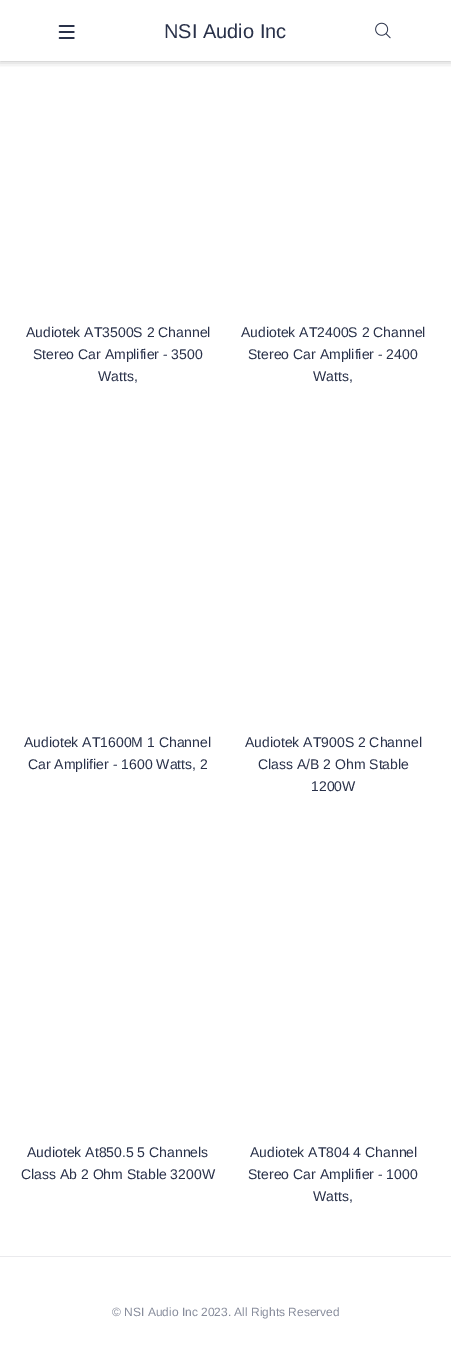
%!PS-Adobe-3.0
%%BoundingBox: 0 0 451 1369
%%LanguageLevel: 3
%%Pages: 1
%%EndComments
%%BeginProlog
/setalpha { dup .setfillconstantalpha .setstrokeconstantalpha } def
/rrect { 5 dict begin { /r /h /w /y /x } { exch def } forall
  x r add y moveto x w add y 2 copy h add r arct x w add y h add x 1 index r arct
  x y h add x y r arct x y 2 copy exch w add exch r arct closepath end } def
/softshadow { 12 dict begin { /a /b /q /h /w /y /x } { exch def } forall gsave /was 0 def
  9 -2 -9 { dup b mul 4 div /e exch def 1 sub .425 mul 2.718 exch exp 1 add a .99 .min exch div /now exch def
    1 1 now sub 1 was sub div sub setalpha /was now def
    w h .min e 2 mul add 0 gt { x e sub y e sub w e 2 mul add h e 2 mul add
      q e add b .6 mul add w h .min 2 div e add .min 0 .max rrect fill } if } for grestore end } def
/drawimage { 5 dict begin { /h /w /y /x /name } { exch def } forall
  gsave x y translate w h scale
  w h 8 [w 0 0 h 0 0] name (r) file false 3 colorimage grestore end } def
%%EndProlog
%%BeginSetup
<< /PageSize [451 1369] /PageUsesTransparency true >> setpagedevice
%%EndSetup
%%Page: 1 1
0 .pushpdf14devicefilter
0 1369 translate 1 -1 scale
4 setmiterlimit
1 setgray
0 0 451 1369 rectfill
gsave
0 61 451 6 rectclip
0 setgray
0 0 451 61 0 4 0.3 softshadow
grestore
(images/1.raw) 58 25 17 14 drawimage
(images/2.raw) 375 22 16 17 drawimage
0.918 0.918 0.929 setrgbcolor
0 1256 451 1 rectfill
/LiberationSans-Regular [20 0 0 -20 0 0] selectfont
0.161 0.192 0.286 setrgbcolor
164 38 moveto (NSI Audio Inc) show
/LiberationSans-Regular [14 0 0 -14 0 0] selectfont
26 337 moveto (Audiotek AT3500S 2 Channel) show
33 359 moveto (Stereo Car Amplifier - 3500) show
98 381 moveto (Watts,) show
241 337 moveto (Audiotek AT2400S 2 Channel) show
248 359 moveto (Stereo Car Amplifier - 2400) show
313 381 moveto (Watts,) show
24 747 moveto (Audiotek AT1600M 1 Channel) show
28 769 moveto (Car Amplifier - 1600 Watts, 2) show
245 747 moveto (Audiotek AT900S 2 Channel) show
258 769 moveto (Class A/B 2 Ohm Stable) show
311 791 moveto (1200W) show
27 1157 moveto (Audiotek At850.5 5 Channels) show
21 1179 moveto (Class Ab 2 Ohm Stable 3200W) show
250 1157 moveto (Audiotek AT804 4 Channel) show
248 1179 moveto (Stereo Car Amplifier - 1000) show
313 1201 moveto (Watts,) show
/LiberationSans-Regular [12 0 0 -12 0 0] selectfont
0.529 0.549 0.608 setrgbcolor
112 1316 moveto (© NSI Audio Inc 2023. All Rights Reserved) show
.poppdf14devicefilter showpage
%%EOF
